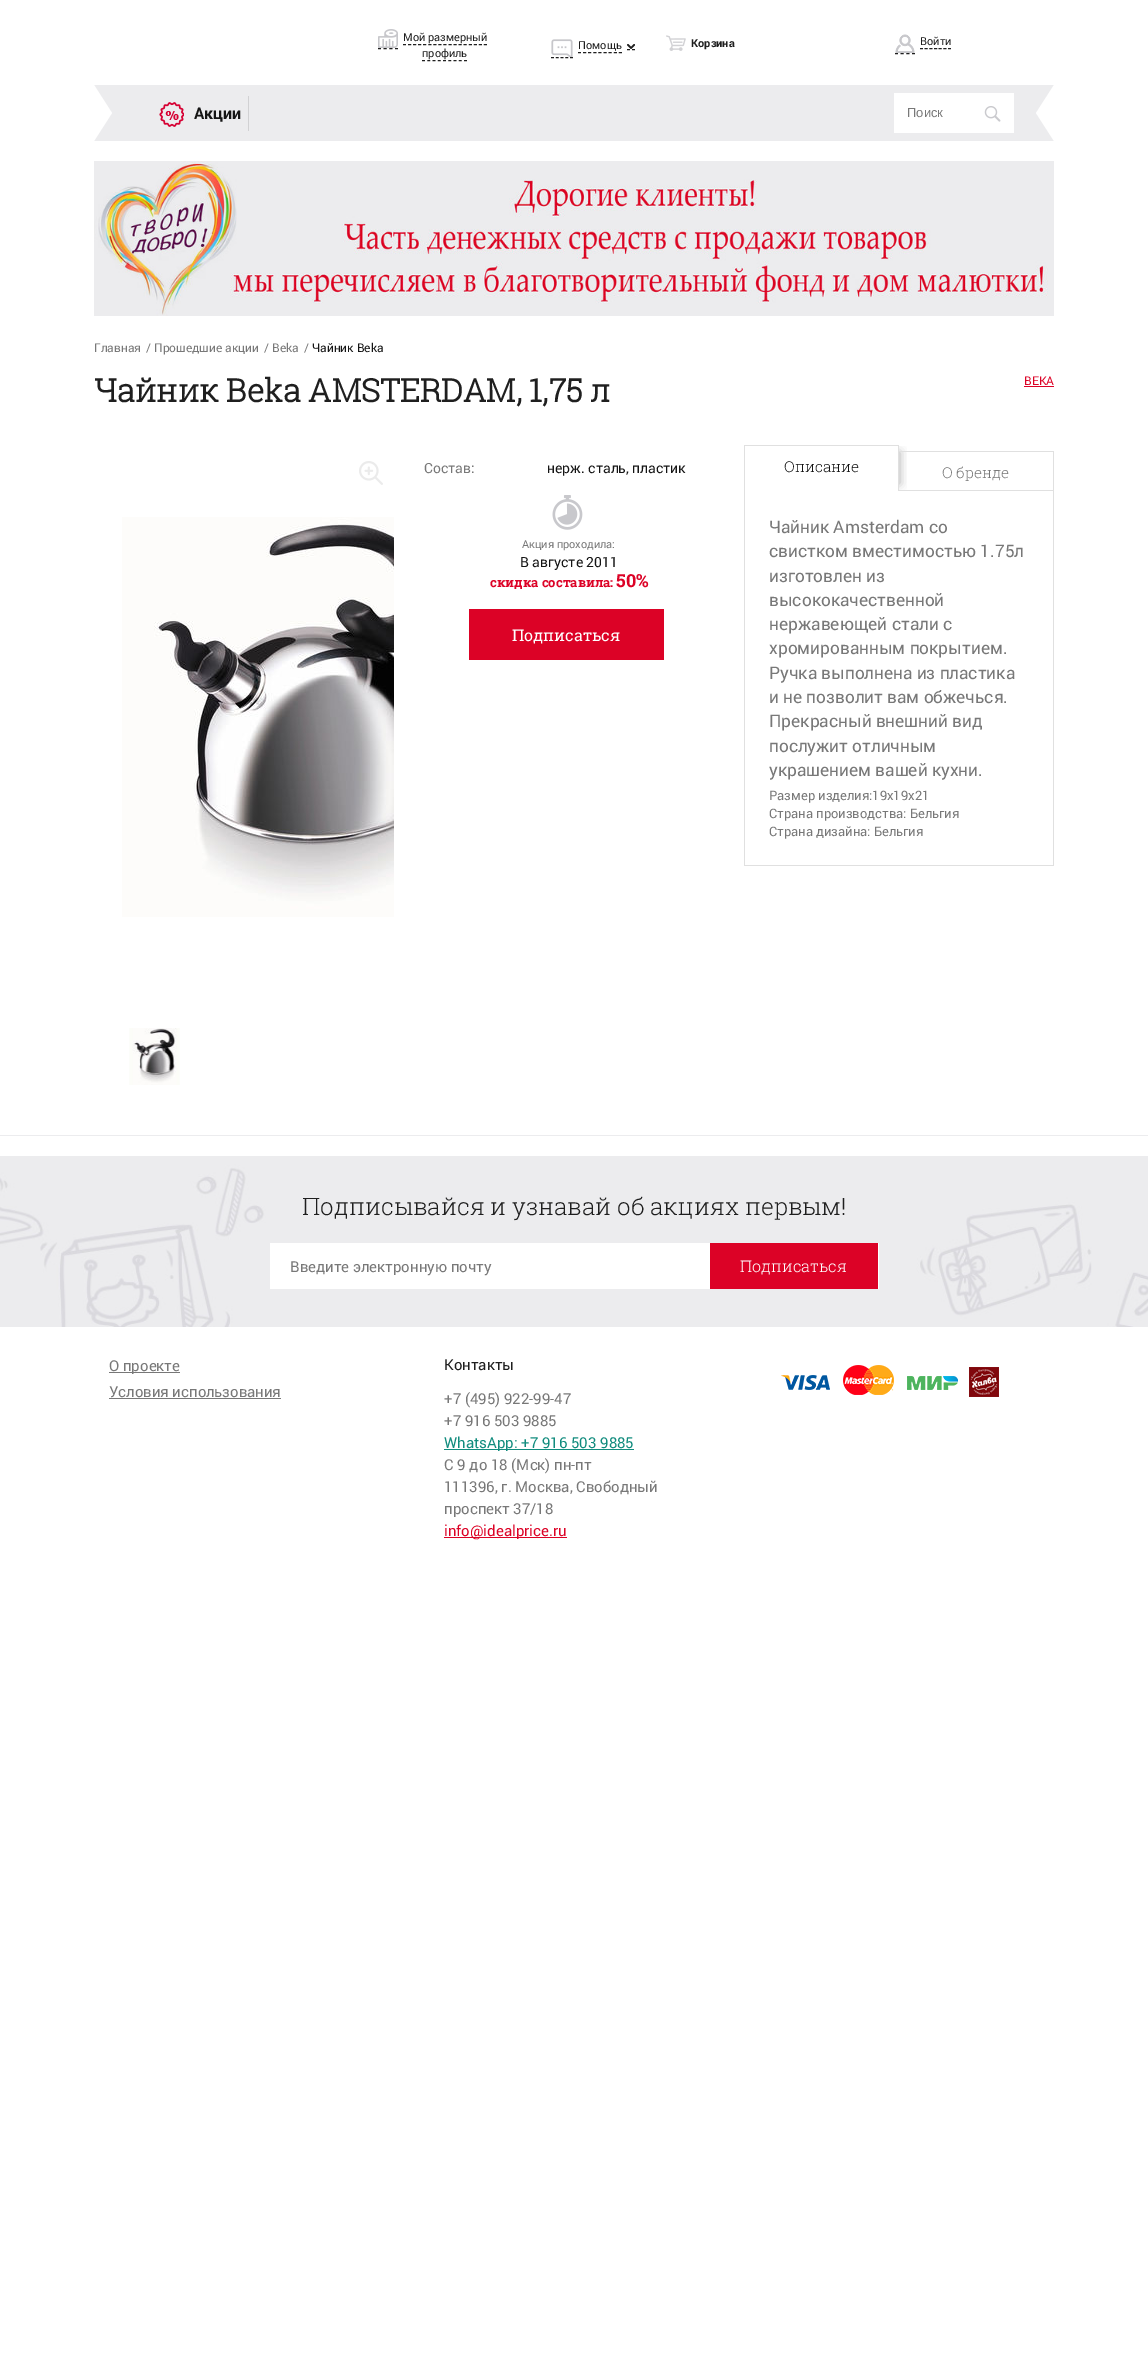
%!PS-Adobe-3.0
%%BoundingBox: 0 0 1148 2372
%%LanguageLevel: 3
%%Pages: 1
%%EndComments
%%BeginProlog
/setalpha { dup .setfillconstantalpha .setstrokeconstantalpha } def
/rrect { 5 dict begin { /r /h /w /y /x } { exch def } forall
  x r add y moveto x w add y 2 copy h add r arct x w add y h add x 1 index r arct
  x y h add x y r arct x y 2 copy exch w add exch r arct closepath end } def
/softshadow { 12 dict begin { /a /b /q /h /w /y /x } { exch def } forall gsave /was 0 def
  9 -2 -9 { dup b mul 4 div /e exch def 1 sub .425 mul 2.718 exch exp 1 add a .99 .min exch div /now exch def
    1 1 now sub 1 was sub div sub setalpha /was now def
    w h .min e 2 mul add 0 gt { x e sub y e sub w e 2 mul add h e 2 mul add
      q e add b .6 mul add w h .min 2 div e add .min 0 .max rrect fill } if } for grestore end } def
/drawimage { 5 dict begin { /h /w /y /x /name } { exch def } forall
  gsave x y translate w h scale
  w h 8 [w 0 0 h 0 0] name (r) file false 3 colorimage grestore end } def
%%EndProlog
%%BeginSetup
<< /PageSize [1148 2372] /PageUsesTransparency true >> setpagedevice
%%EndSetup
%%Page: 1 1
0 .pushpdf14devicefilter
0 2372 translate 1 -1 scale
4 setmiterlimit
1 setgray
0 0 1148 2372 rectfill
0.122 setgray
[3 2.67] 0 setdash
newpath 378 48.5 moveto 398 48.5 lineto stroke
[3 2.06] 0 setdash
newpath 403 44.5 moveto 487 44.5 lineto stroke
[3 2.25] 0 setdash
newpath 422 60.5 moveto 467 60.5 lineto stroke
(images/1.raw) 378 29 20 19 drawimage
[3 1.75] 0 setdash
newpath 551 57.5 moveto 573 57.5 lineto stroke
[3 2.12] 0 setdash
newpath 578 52.5 moveto 622 52.5 lineto stroke
[] 0 setdash
newpath 627 49.5 moveto 630 49.5 lineto 632 49.5 moveto 635 49.5 lineto stroke
(images/2.raw) 551 39 22 18 drawimage
(images/3.raw) 627 44 8 5 drawimage
(images/4.raw) 666 35 20 16 drawimage
[3 2.67] 0 setdash
newpath 895 53.5 moveto 915 53.5 lineto stroke
[3 1.67] 0 setdash
newpath 920 48.5 moveto 951 48.5 lineto stroke
(images/5.raw) 895 34 20 19 drawimage
0.925 0.925 0.933 setrgbcolor
94 85 960 56 rectfill
1 setgray
newpath 94 141 moveto 94 85 lineto 112 113 lineto closepath fill
(images/6.raw) 159 102 25 25 drawimage
0.82 0.82 0.827 setrgbcolor
248 96 1 35 rectfill
1 setgray
894 93 120 40 rectfill
(images/7.raw) 984 106 17 16 drawimage
newpath 1054 85 moveto 1054 141 lineto 1036 113 lineto closepath fill
(images/8.raw) 94 161 960 155 drawimage
0.863 0.008 0.149 setrgbcolor
1024 386 30 1 rectfill
(images/9.raw) 359 461 24 24 drawimage
(images/10.raw) 122 517 272 400 drawimage
(images/11.raw) 129 1028 51 57 drawimage
(images/12.raw) 552 495 31 35 drawimage
469 609 195 51 rectfill
gsave
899 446 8 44 rectclip
0 setgray
759 452 141 32 0 5 0.3 softshadow
grestore
0.878 setgray
744 445 155 1 rectfill
898 445 1 46 rectfill
744 445 1 46 rectfill
899 451 155 1 rectfill
1053 451 1 415 rectfill
899 490 155 1 rectfill
1 setgray
759 491 141 2 rectfill
0.878 setgray
744 865 310 1 rectfill
744 491 1 375 rectfill
0.925 0.925 0.933 setrgbcolor
0 1135 1148 1 rectfill
(images/13.raw) 0 1156 1148 171 drawimage
1 setgray
270 1243 609 46 rectfill
0.863 0.008 0.149 setrgbcolor
710 1243 168 46 rectfill
0.467 setgray
109 1372 71 1 rectfill
109 1398 172 1 rectfill
0.071 0.549 0.494 setrgbcolor
444 1449 190 1 rectfill
0.863 0.008 0.149 setrgbcolor
444 1537 123 1 rectfill
(images/14.raw) 781 1365 177 30 drawimage
(images/15.raw) 969 1367 30 30 drawimage
/Roboto-Regular [11 0 0 -11 0 0] selectfont
0.122 setgray
403 41 moveto (Мой размерный) show
422 57 moveto (профиль) show
578 49 moveto (Помощь) show
/Roboto-Bold [11 0 0 -11 0 0] selectfont
691 47 moveto (Корзина) show
/Roboto-Regular [11 0 0 -11 0 0] selectfont
920 45 moveto (Войти) show
/Roboto-Bold [16 0 0 -16 0 0] selectfont
0.082 setgray
194 119 moveto (Акции) show
/LiberationSans-Regular [13 0 0 -13 0 0] selectfont
0.471 setgray
907 117 moveto (Поиск) show
/Roboto-Regular [12 0 0 -12 0 0] selectfont
94 352 moveto (Главная) show
146 352 moveto (/ Прошедшие акции) show
264 352 moveto (/ Beka) show
304 352 moveto (/) show
0.082 setgray
312 352 moveto (Чайник Beka) show
/RobotoSlab-Bold [32 0 0 -32 0 0] selectfont
0.122 setgray
94 402 moveto (Чайник Beka AMSTERDAM, 1,75 л) show
/Roboto-Regular [12 0 0 -12 0 0] selectfont
0.863 0.008 0.149 setrgbcolor
1024 385 moveto (BEKA) show
/Roboto-Regular [14 0 0 -14 0 0] selectfont
0.471 setgray
424 473 moveto (Состав:) show
0.082 setgray
547 473 moveto (нерж. сталь, пластик) show
/Roboto-Regular [11 0 0 -11 0 0] selectfont
0.471 setgray
522 548 moveto (Акция проходила:) show
/Roboto-Regular [14 0 0 -14 0 0] selectfont
0.082 setgray
520 567 moveto (В августе 2011) show
/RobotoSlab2-Bold [13 0 0 -13 0 0] selectfont
0.863 0.008 0.149 setrgbcolor
490 587 moveto (скидка составила:) show
/RobotoSlab2-Bold [18 0 0 -18 0 0] selectfont
616 587 moveto (50%) show
/RobotoSlab-Regular [16 0 0 -16 0 0] selectfont
1 setgray
512 641 moveto (Подписаться) show
/RobotoSlab-Light [15 0 0 -15 0 0] selectfont
0.082 setgray
784 472 moveto (Описание) show
0.471 setgray
942 478 moveto (О бренде) show
/Roboto-Regular [17.3 0 0 -17.3 0 0] selectfont
769 533 moveto (Чайник Amsterdam со) show
769 557 moveto (свистком вместимостью 1.75л) show
769 582 moveto (изготовлен из) show
769 606 moveto (высококачественной) show
769 630 moveto (нержавеющей стали с) show
769 654 moveto (хромированным покрытием.) show
769 679 moveto (Ручка выполнена из пластика) show
769 703 moveto (и не позволит вам обжечься.) show
769 727 moveto (Прекрасный внешний вид) show
769 752 moveto (послужит отличным) show
769 776 moveto (украшением вашей кухни.) show
/Roboto-Regular [13 0 0 -13 0 0] selectfont
769 800 moveto (Размер изделия:19х19х21) show
769 818 moveto (Страна производства: Бельгия) show
769 836 moveto (Страна дизайна: Бельгия) show
/RobotoSlab-Light [24 0 0 -24 0 0] selectfont
0.122 setgray
302 1215 moveto (Подписывайся и узнавай об акциях первым!) show
/Roboto-Regular [15 0 0 -15 0 0] selectfont
0.471 setgray
290 1272 moveto (Введите электронную почту) show
/RobotoSlab-Light [16 0 0 -16 0 0] selectfont
1 setgray
740 1272 moveto (Подписаться) show
/Roboto-Regular [15 0 0 -15 0 0] selectfont
0.471 setgray
109 1371 moveto (О проекте) show
109 1397 moveto (Условия использования) show
0.122 setgray
444 1370 moveto (Контакты) show
0.471 setgray
444 1404 moveto (+7 \(495\) 922-99-47) show
444 1426 moveto (+7 916 503 9885) show
0.071 0.549 0.494 setrgbcolor
444 1448 moveto (WhatsApp: +7 916 503 9885) show
0.471 setgray
444 1470 moveto (С 9 до 18 \(Мск\) пн-пт) show
444 1492 moveto (111396, г. Москва, Свободный) show
444 1514 moveto (проспект 37/18) show
0.863 0.008 0.149 setrgbcolor
444 1536 moveto (info@idealprice.ru) show
.poppdf14devicefilter showpage
%%EOF
